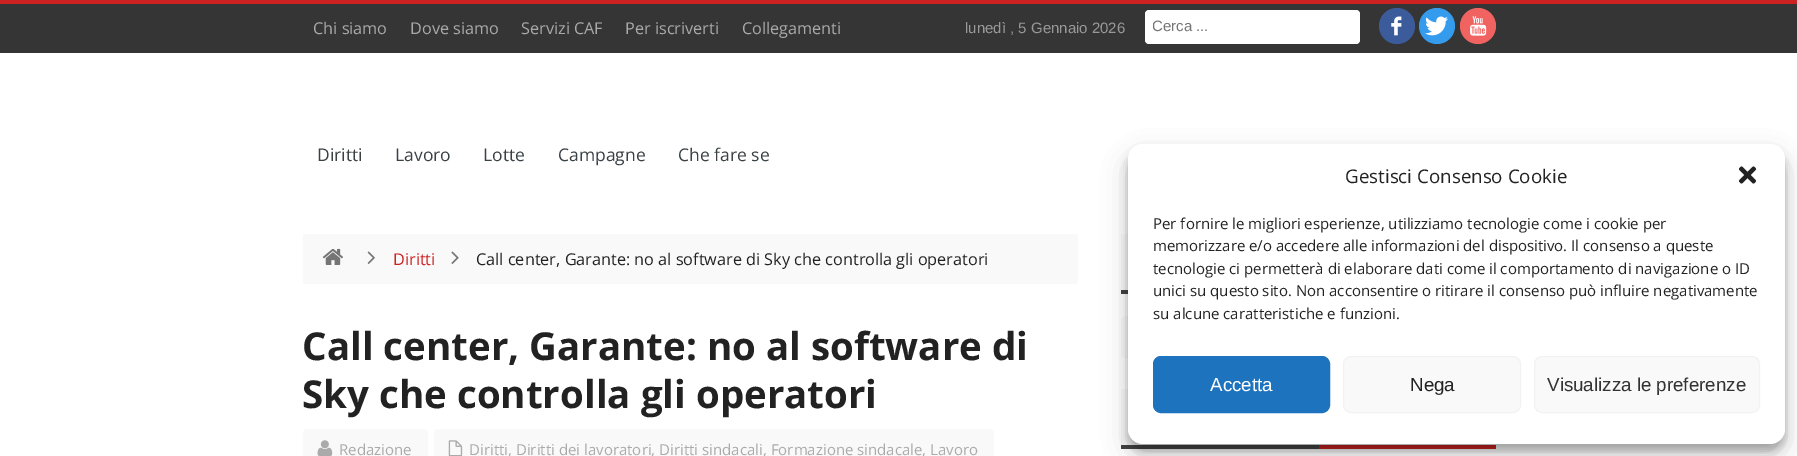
%!PS-Adobe-3.0
%%BoundingBox: 0 0 1797 456
%%LanguageLevel: 3
%%Pages: 1
%%EndComments
%%BeginProlog
/setalpha { dup .setfillconstantalpha .setstrokeconstantalpha } def
/rrect { 5 dict begin { /r /h /w /y /x } { exch def } forall
  x r add y moveto x w add y 2 copy h add r arct x w add y h add x 1 index r arct
  x y h add x y r arct x y 2 copy exch w add exch r arct closepath end } def
/softshadow { 12 dict begin { /a /b /q /h /w /y /x } { exch def } forall gsave /was 0 def
  9 -2 -9 { dup b mul 4 div /e exch def 1 sub .425 mul 2.718 exch exp 1 add a .99 .min exch div /now exch def
    1 1 now sub 1 was sub div sub setalpha /was now def
    w h .min e 2 mul add 0 gt { x e sub y e sub w e 2 mul add h e 2 mul add
      q e add b .6 mul add w h .min 2 div e add .min 0 .max rrect fill } if } for grestore end } def
/drawimage { 5 dict begin { /h /w /y /x /name } { exch def } forall
  gsave x y translate w h scale
  w h 8 [w 0 0 h 0 0] name (r) file false 3 colorimage grestore end } def
%%EndProlog
%%BeginSetup
<< /PageSize [1797 456] /PageUsesTransparency true >> setpagedevice
%%EndSetup
%%Page: 1 1
0 .pushpdf14devicefilter
0 456 translate 1 -1 scale
4 setmiterlimit
1 setgray
0 0 1797 456 rectfill
0.208 setgray
0 4 1797 49 rectfill
0.804 0.129 0.133 setrgbcolor
0 0 1797 4 rectfill
1 setgray
1145 10 215 34 4 rrect fill
0.235 0.357 0.608 setrgbcolor
newpath 1397 26 18 0 360 arc closepath fill
(images/1.raw) 1391 16 11 20 drawimage
0.208 0.608 0.929 setrgbcolor
newpath 1437 26 18 0 360 arc closepath fill
(images/2.raw) 1425 16 23 20 drawimage
0.945 0.388 0.38 setrgbcolor
newpath 1478 26 18 0 360 arc closepath fill
(images/3.raw) 1470 16 17 20 drawimage
0.976 setgray
303 234 775 50 2.5 rrect fill
(images/4.raw) 322 248 21 17 drawimage
(images/5.raw) 367 251 8 13 drawimage
(images/6.raw) 451 251 8 13 drawimage
303 429 125 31 4 rrect fill
(images/7.raw) 317 440 16 16 drawimage
434 429 560 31 4 rrect fill
(images/8.raw) 448 440 15 16 drawimage
1121 234 7 56 rectfill
0.267 setgray
1121 290 7 4 rectfill
0.976 setgray
1121 316 160 42 4 rrect fill
0.804 0.129 0.133 setrgbcolor
1319 445 177 4 rectfill
0.976 setgray
1121 389 198 56 rectfill
0.267 setgray
1121 445 198 4 rectfill
0 setgray
1128 151 657 300 15 4 0.23 softshadow
1128 156 657 300 15 12.5 0.19 softshadow
1 setgray
1128 144 657 300 15 rrect fill
(images/9.raw) 1738 166 19 18 drawimage
0.118 0.451 0.745 setrgbcolor
1153.5 356.5 176 56 7.5 rrect gsave fill grestore
stroke
0.976 setgray
1343.5 356.5 177 56 7.5 rrect gsave fill grestore
0.949 setgray
stroke
0.976 setgray
1534.5 356.5 225 56 7.5 rrect gsave fill grestore
0.949 setgray
stroke
/OpenSans-Regular [16.25 0 0 -16.25 0 0] selectfont
0.667 setgray
313 34 moveto (Chi siamo) show
410 34 moveto (Dove siamo) show
521 34 moveto (Servizi CAF) show
625 34 moveto (Per iscriverti) show
742 34 moveto (Collegamenti) show
/LiberationSans-Regular [15 0 0 -15 0 0] selectfont
0.6 setgray
965 33 moveto (lunedì , 5 Gennaio 2026) show
gsave
1153 18 200 17 rectclip
0.459 setgray
1152 31 moveto (Cerca ...) show
grestore
/OpenSans-Regular [17.5 0 0 -17.5 0 0] selectfont
0.227 0.255 0.271 setrgbcolor
317 161 moveto (Diritti) show
395 161 moveto (Lavoro) show
483 161 moveto (Lotte) show
558 161 moveto (Campagne) show
678 161 moveto (Che fare se) show
/OpenSans-Regular [16.25 0 0 -16.25 0 0] selectfont
0.804 0.129 0.133 setrgbcolor
393 265 moveto (Diritti) show
0.133 setgray
476 265 moveto (Call center, Garante: no al software di Sky che controlla gli operatori) show
/OpenSans-Bold [38.5 0 0 -38.5 0 0] selectfont
302 360 moveto (Call center, Garante: no al software di) show
302 408 moveto (Sky che controlla gli operatori) show
/OpenSans-Regular [15 0 0 -15 0 0] selectfont
0.667 setgray
339 455 moveto (Redazione) show
469 455 moveto (Diritti, Diritti dei lavoratori, Diritti sindacali, Formazione sindacale, Lavoro) show
/OpenSans-Regular [18.75 0 0 -18.75 0 0] selectfont
0.133 setgray
1345 183 moveto (Gestisci Consenso Cookie) show
/OpenSans-Regular [15 0 0 -15 0 0] selectfont
1153 229 moveto (Per fornire le migliori esperienze, utilizziamo tecnologie come i cookie per) show
1153 251 moveto (memorizzare e/o accedere alle informazioni del dispositivo. Il consenso a queste) show
1153 274 moveto (tecnologie ci permetterà di elaborare dati come il comportamento di navigazione o ID) show
1153 296 moveto (unici su questo sito. Non acconsentire o ritirare il consenso può influire negativamente) show
1153 319 moveto (su alcune caratteristiche e funzioni.) show
/LiberationSans-Regular [18.75 0 0 -18.75 0 0] selectfont
1 setgray
1210 391 moveto (Accetta) show
0.133 setgray
1410 391 moveto (Nega) show
0.2 setgray
1547 391 moveto (Visualizza le preferenze) show
.poppdf14devicefilter showpage
%%EOF
